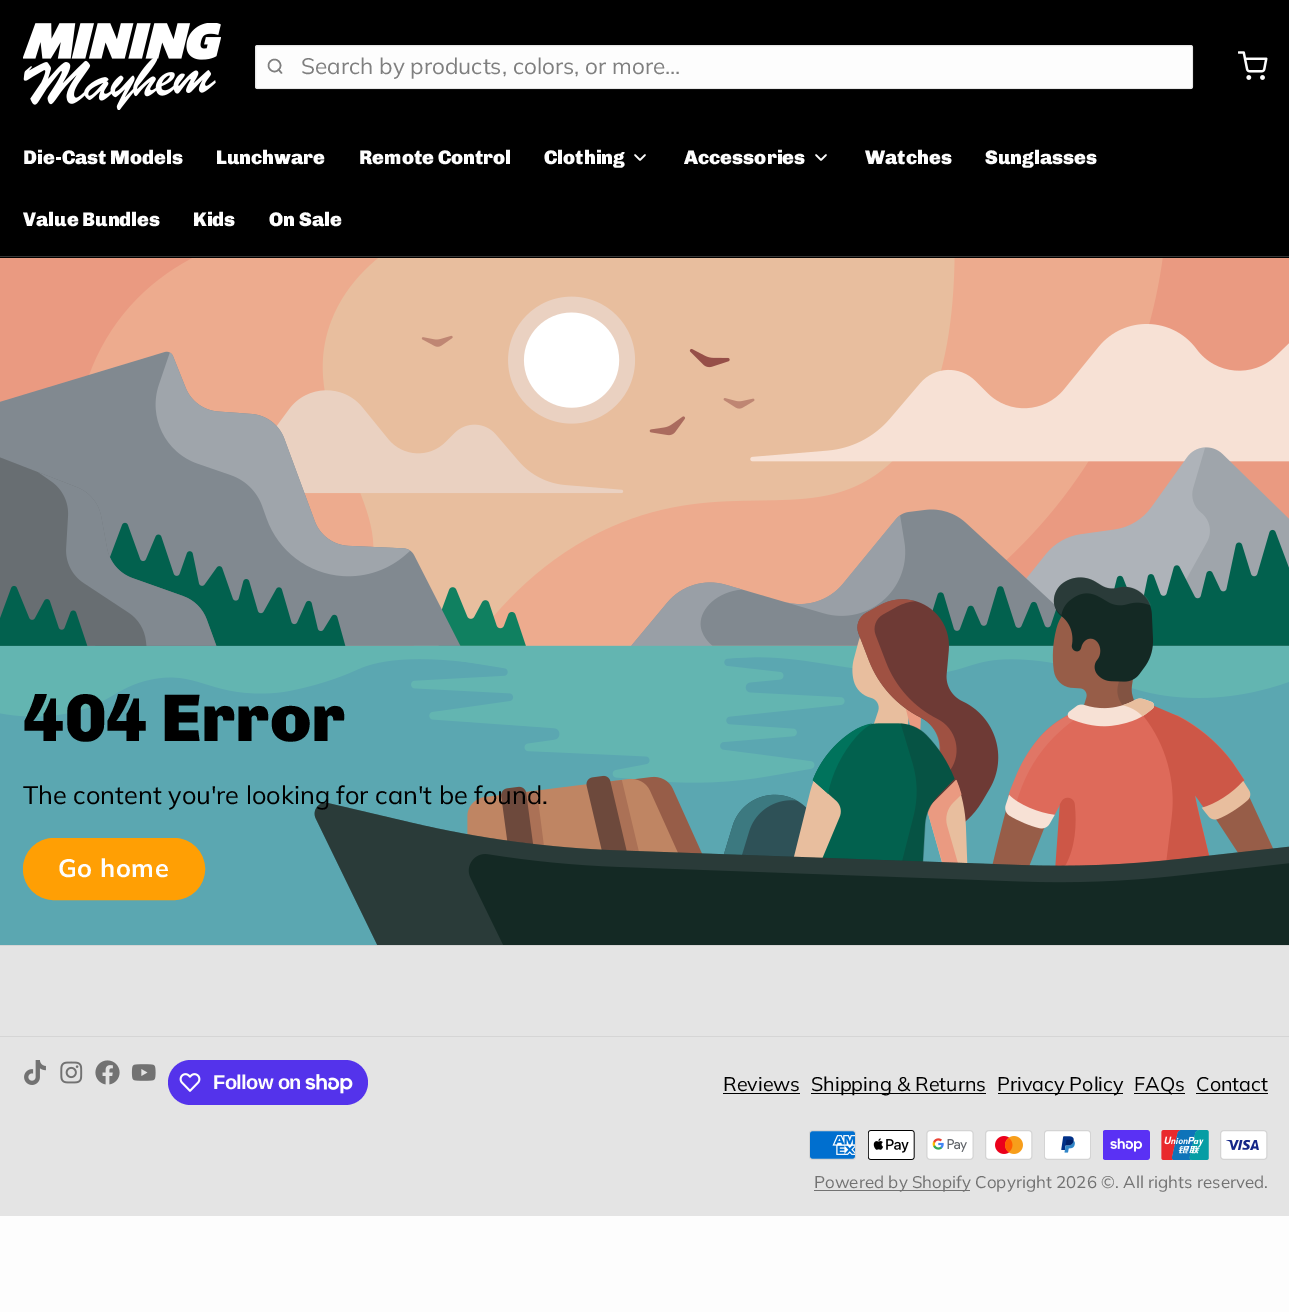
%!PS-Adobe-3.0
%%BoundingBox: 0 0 1289 1312
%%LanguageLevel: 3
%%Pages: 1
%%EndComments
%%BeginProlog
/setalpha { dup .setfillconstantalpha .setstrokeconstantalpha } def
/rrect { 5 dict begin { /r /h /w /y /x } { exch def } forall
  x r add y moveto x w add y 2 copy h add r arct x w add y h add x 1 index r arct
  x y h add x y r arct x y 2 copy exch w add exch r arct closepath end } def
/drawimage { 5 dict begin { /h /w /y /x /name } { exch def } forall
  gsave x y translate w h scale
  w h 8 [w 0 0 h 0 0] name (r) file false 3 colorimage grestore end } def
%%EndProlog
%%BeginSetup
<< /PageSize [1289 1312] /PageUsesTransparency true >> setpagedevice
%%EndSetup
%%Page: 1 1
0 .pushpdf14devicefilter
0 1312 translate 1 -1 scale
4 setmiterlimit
0.992 setgray
0 0 1289 1312 rectfill
0 setgray
0 0 1289 258 rectfill
0.208 setgray
0 256 1289 1 rectfill
(images/1.raw) 23 23 198 87 drawimage
0.992 setgray
255 45 938 44 2.5 rrect fill
0.3 setalpha
0.694 setgray
255.5 45.5 937 43 2 rrect stroke
1 setalpha
0.498 setgray
1.5 setlinewidth
newpath 274.5 65.5 6 0 360 arc closepath stroke
1 setlinecap
1 setlinejoin
newpath 281.5 73 moveto 278.5 69.5 lineto stroke
(images/2.raw) 1238 51 30 29 drawimage
0.992 setgray
1.7 setlinewidth
newpath 635 155 moveto 640 160 lineto 645 155 lineto stroke
newpath 816 155 moveto 821 160 lineto 826 155 lineto stroke
(images/3.raw) 0 258 1289 687 drawimage
1 0.624 0.016 setrgbcolor
23.5 838.5 181 61 30.5 rrect gsave fill grestore
1 setlinewidth
0 setlinecap
0 setlinejoin
stroke
0.894 setgray
0 946 1289 90 rectfill
0.835 setgray
0 945 1289 1 rectfill
0.894 setgray
0 1037 1289 179 rectfill
0.835 setgray
0 1036 1289 1 rectfill
(images/4.raw) 24 1060 22 25 drawimage
(images/5.raw) 60 1061 23 23 drawimage
(images/6.raw) 95 1060 25 25 drawimage
(images/7.raw) 131 1064 25 17 drawimage
0.329 0.2 0.922 setrgbcolor
168 1060 200 45 22.5 rrect fill
(images/8.raw) 179 1073 22 19 drawimage
(images/9.raw) 305 1074 48 20 drawimage
0 setgray
723 1093 77 1 rectfill
811 1093 175 1 rectfill
998 1093 125 1 rectfill
1134 1093 51 1 rectfill
1196 1093 72 1 rectfill
(images/10.raw) 809 1130 47 30 drawimage
(images/11.raw) 868 1130 47 30 drawimage
(images/12.raw) 926 1130 48 30 drawimage
(images/13.raw) 985 1130 48 30 drawimage
(images/14.raw) 1044 1130 47 30 drawimage
(images/15.raw) 1103 1130 47 30 drawimage
(images/16.raw) 1161 1130 48 30 drawimage
(images/17.raw) 1220 1130 48 30 drawimage
0.447 setgray
814 1190 156 1 rectfill
/Muli-Regular [22.5 0 0 -22.5 0 0] selectfont
0.498 setgray
301 74 moveto (Search by products, colors, or more...) show
/Chivo-Black [19.75 0 0 -19.75 0 0] selectfont
0.992 setgray
23 164 moveto (Die-Cast Models) show
216 164 moveto (Lunchware) show
359 164 moveto (Remote Control) show
544 164 moveto (Clothing) show
684 164 moveto (Accessories) show
865 164 moveto (Watches) show
985 164 moveto (Sunglasses) show
23 226 moveto (Value Bundles) show
193 226 moveto (Kids) show
269 226 moveto (On Sale) show
/Chivo-Black [67.5 0 0 -67.5 0 0] selectfont
0 setgray
23 741 moveto (404 Error) show
/Muli-Regular [25.3 0 0 -25.3 0 0] selectfont
23 804 moveto (The content you're looking for can't be found.) show
/Muli-Bold [25.3 0 0 -25.3 0 0] selectfont
0.992 setgray
58 877 moveto 0.5 0 (Go home) ashow
/LiberationSans-Bold [20 0 0 -20 0 0] selectfont
213 1089 moveto -0.6 0 (Follow on) ashow
/Muli-Regular [19.75 0 0 -19.75 0 0] selectfont
0 setgray
723 1091 moveto (Reviews) show
811 1091 moveto (Shipping & Returns) show
997 1091 moveto (Privacy Policy) show
1134 1091 moveto (FAQs) show
1196 1091 moveto (Contact) show
/Muli-Regular [16.9 0 0 -16.9 0 0] selectfont
0.447 setgray
814 1188 moveto (Powered by Shopify Copyright 2026 ©. All rights reserved.) show
.poppdf14devicefilter showpage
%%EOF
